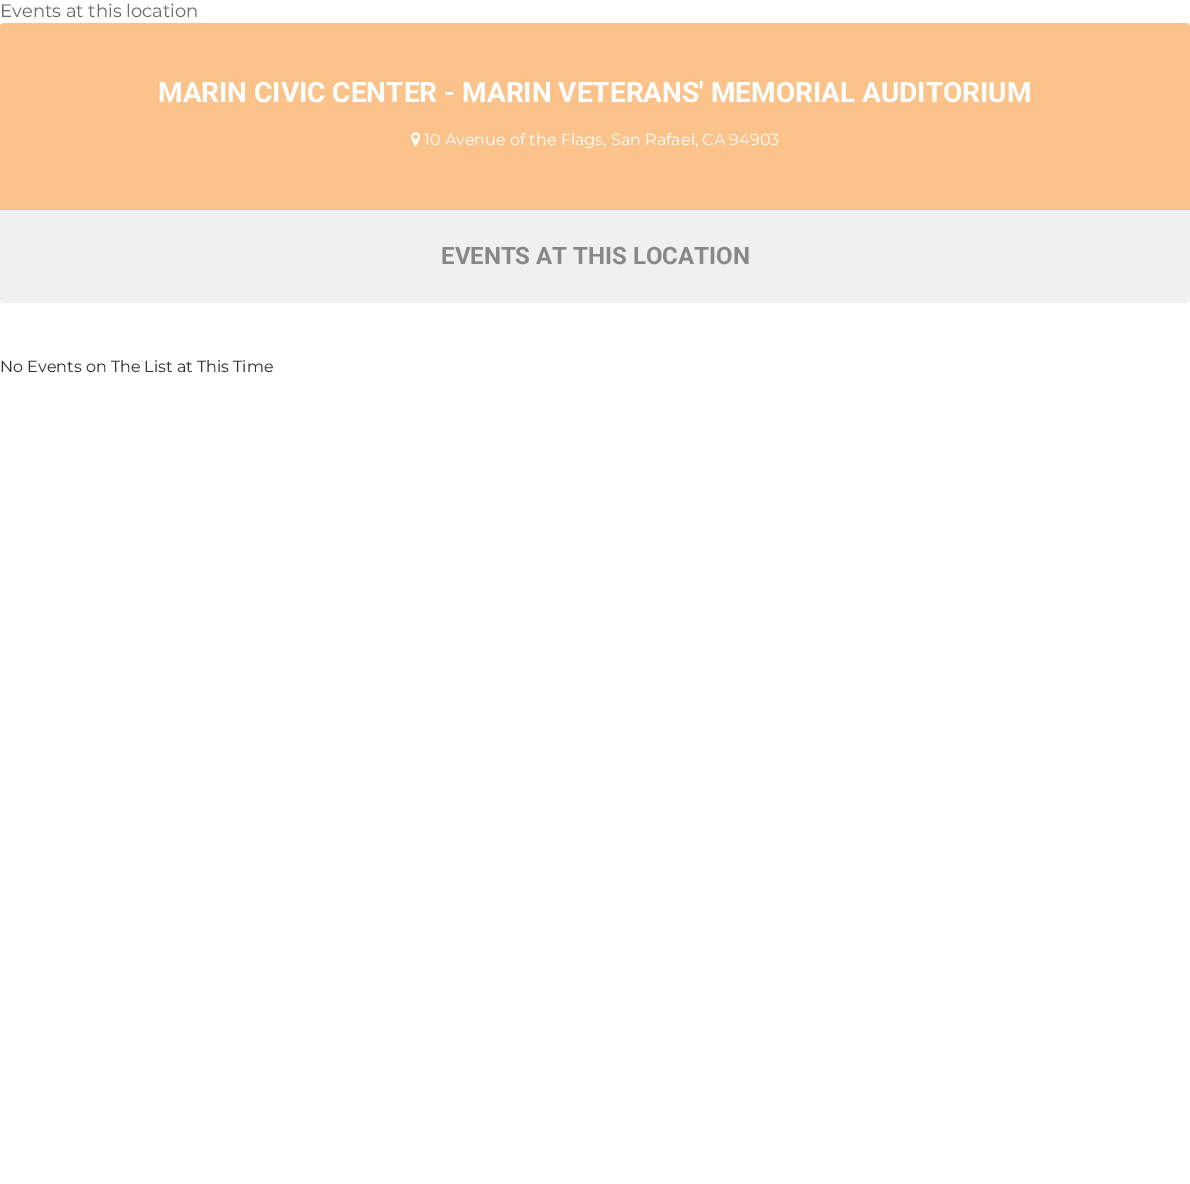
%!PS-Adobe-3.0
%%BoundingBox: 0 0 1190 1184
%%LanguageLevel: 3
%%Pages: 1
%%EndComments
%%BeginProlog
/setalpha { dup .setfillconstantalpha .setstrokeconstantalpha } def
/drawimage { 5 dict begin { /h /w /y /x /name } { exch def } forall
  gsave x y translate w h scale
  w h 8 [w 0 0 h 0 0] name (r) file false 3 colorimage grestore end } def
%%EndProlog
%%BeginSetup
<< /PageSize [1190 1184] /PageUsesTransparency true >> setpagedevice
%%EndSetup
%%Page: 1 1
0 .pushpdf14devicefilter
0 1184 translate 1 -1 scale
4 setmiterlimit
1 setgray
0 0 1190 1184 rectfill
0.863 setgray
newpath 5 23 moveto 1185 23 lineto 1188 23 1190 25 1190 28 curveto 1190 209 lineto 0 209 lineto 0 28 lineto 0 25 2 23 5 23 curveto closepath fill
0.89 setalpha
1 0.749 0.502 setrgbcolor
newpath 5 23 moveto 1185 23 lineto 1188 23 1190 25 1190 28 curveto 1190 209 lineto 0 209 lineto 0 28 lineto 0 25 2 23 5 23 curveto closepath fill
1 setalpha
(images/1.raw) 411 132 10 15 drawimage
0.941 setgray
newpath 0 209 moveto 1190 209 lineto 1190 298 lineto 1190 301 1188 303 1185 303 curveto 5 303 lineto 2 303 0 301 0 298 curveto closepath fill
0.757 setgray
0 209 1190 1 rectfill
/Montserrat-Regular [18 0 0 -18 0 0] selectfont
0.416 0.42 0.424 setrgbcolor
0 17 moveto (Events at this location) show
/Roboto-Bold [28 0 0 -28 0 0] selectfont
1 setgray
158 102 moveto (MARIN CIVIC CENTER - MARIN VETERANS' MEMORIAL AUDITORIUM) show
/Montserrat-Regular [16 0 0 -16 0 0] selectfont
424 145 moveto (10 Avenue of the Flags, San Rafael, CA 94903) show
/Roboto-Bold [24 0 0 -24 0 0] selectfont
0.533 setgray
441 264 moveto (EVENTS AT THIS LOCATION) show
/Montserrat-Regular [16 0 0 -16 0 0] selectfont
0.184 setgray
0 372 moveto (No Events on The List at This Time) show
.poppdf14devicefilter showpage
%%EOF
